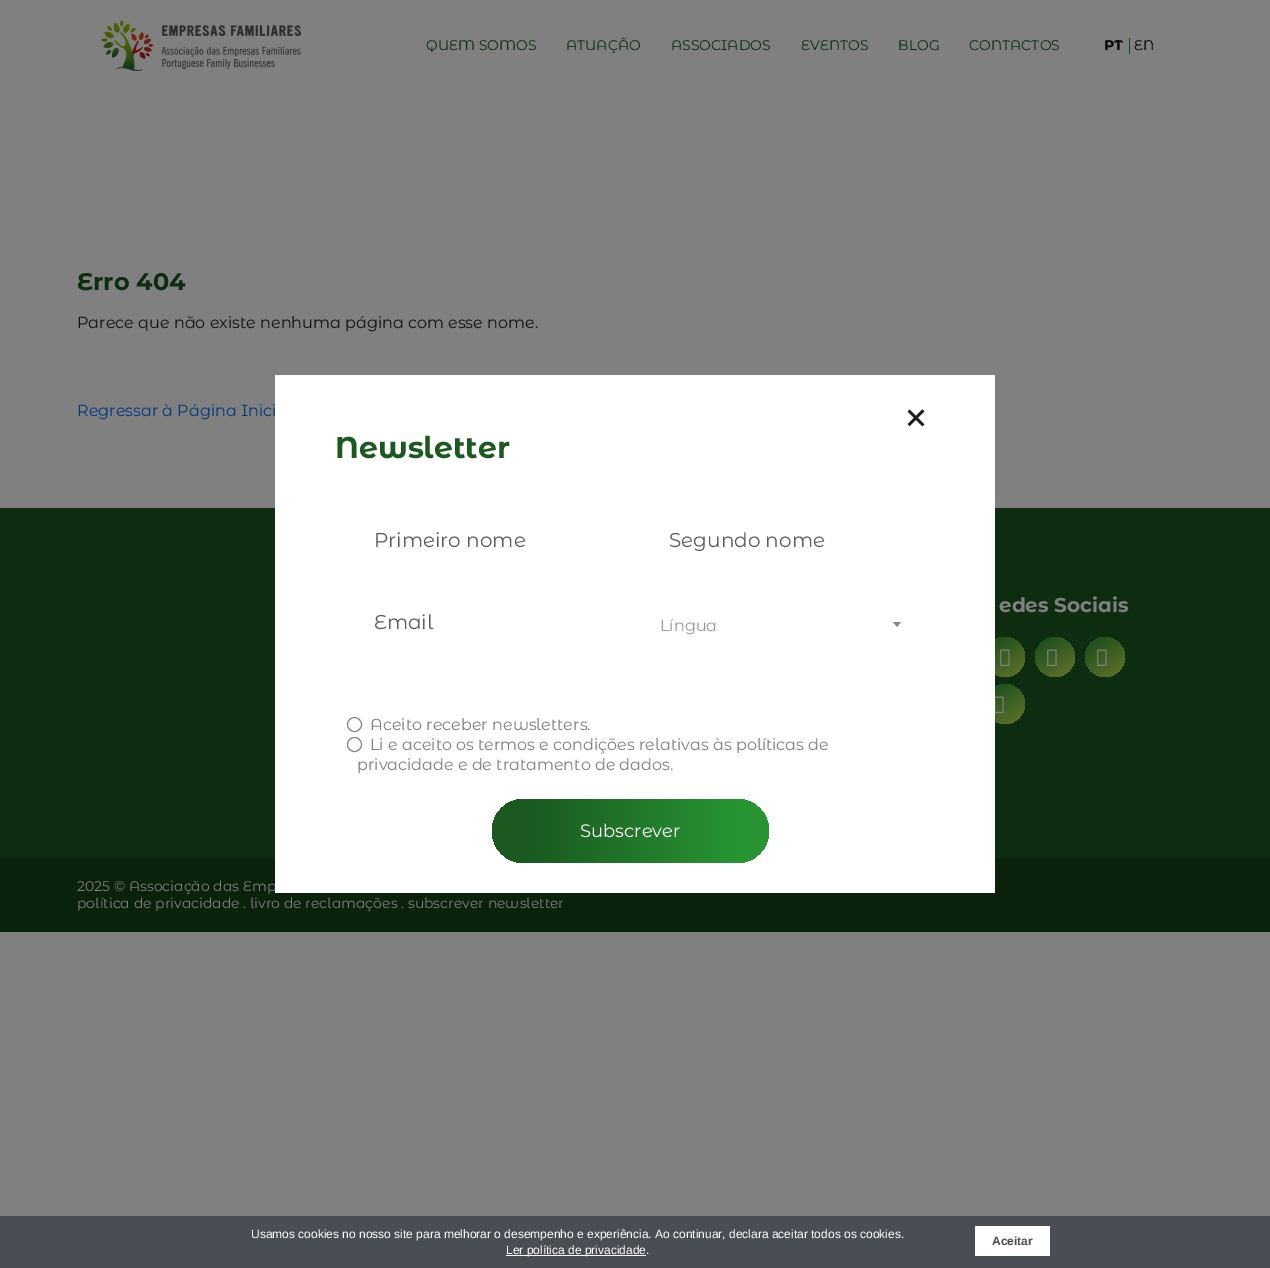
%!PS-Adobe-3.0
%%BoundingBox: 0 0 1270 1268
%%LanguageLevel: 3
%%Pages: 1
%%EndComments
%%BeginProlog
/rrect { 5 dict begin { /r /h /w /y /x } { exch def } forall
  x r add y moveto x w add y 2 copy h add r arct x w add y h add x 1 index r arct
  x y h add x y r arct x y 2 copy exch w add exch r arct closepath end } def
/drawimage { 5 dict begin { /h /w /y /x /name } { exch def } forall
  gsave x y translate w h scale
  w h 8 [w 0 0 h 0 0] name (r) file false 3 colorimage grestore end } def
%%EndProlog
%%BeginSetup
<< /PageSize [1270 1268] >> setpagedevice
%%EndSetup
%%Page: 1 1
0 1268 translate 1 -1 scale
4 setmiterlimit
0.502 setgray
0 0 1270 1268 rectfill
(images/1.raw) 101 20 200 51 drawimage
0.082 0.278 0.082 setrgbcolor
1129 38 1 16 rectfill
0.055 0.176 0.063 setrgbcolor
0 508 1270 350 rectfill
gsave newpath 1005 657 20 0 360 arc closepath clip newpath
<< /ShadingType 2 /ColorSpace /DeviceRGB /Coords [989 634 1021 680] /Extend [true true] /Function << /FunctionType 2 /Domain [0 1] /C0 [0.078 0.29 0.102] /C1 [0.392 0.455 0.176] /N 1 >> >> shfill grestore
(images/3.raw) 1000 649 10 17 drawimage
gsave newpath 1055 657 20 0 360 arc closepath clip newpath
<< /ShadingType 2 /ColorSpace /DeviceRGB /Coords [1039 634 1071 680] /Extend [true true] /Function << /FunctionType 2 /Domain [0 1] /C0 [0.078 0.29 0.102] /C1 [0.392 0.455 0.176] /N 1 >> >> shfill grestore
(images/4.raw) 1047 649 10 17 drawimage
gsave newpath 1105 657 20 0 360 arc closepath clip newpath
<< /ShadingType 2 /ColorSpace /DeviceRGB /Coords [1089 634 1121 680] /Extend [true true] /Function << /FunctionType 2 /Domain [0 1] /C0 [0.078 0.29 0.102] /C1 [0.392 0.455 0.176] /N 1 >> >> shfill grestore
(images/4.raw) 1097 649 10 17 drawimage
gsave newpath 1005 704 20 0 360 arc closepath clip newpath
<< /ShadingType 2 /ColorSpace /DeviceRGB /Coords [989 681 1021 727] /Extend [true true] /Function << /FunctionType 2 /Domain [0 1] /C0 [0.078 0.29 0.102] /C1 [0.392 0.455 0.176] /N 1 >> >> shfill grestore
(images/5.raw) 995 696 9 17 drawimage
0.039 0.133 0.047 setrgbcolor
0 858 1270 74 rectfill
0.286 0.306 0.329 setrgbcolor
0 1216 1270 52 rectfill
1 setgray
506 1255 140 1 rectfill
975 1226 75 30 rectfill
/MontserratAlternates-Regular [14 0 0 -14 0 0] selectfont
0.055 0.176 0.063 setrgbcolor
426 50 moveto (QUEM SOMOS) show
566 50 moveto (ATUAÇÃO) show
671 50 moveto (ASSOCIADOS) show
801 50 moveto (EVENTOS) show
898 50 moveto (BLOG) show
969 50 moveto (CONTACTOS) show
/MontserratAlternates-Bold [14 0 0 -14 0 0] selectfont
0 setgray
1104 50 moveto (PT) show
/MontserratAlternates-Regular [14 0 0 -14 0 0] selectfont
1134 50 moveto (EN) show
/MontserratAlternates-Bold [24 0 0 -24 0 0] selectfont
0.055 0.176 0.063 setrgbcolor
77 290 moveto (Erro 404) show
/MontserratAlternates-Regular [16 0 0 -16 0 0] selectfont
0.067 0.075 0.082 setrgbcolor
77 328 moveto (Parece que não existe nenhuma página com esse nome.) show
0.027 0.216 0.498 setrgbcolor
77 416 moveto (Regressar à Página Inici) show
/MontserratAlternates-Bold [20 0 0 -20 0 0] selectfont
0.502 setgray
999 612 moveto (edes Sociais) show
/MontserratAlternates-Regular [14 0 0 -14 0 0] selectfont
77 891 moveto (2025 © Associação das Emp) show
1 setgray
275 375 720 518 rectfill
0.514 setgray
newpath 354.5 744.5 7 0 360 arc closepath stroke
/MontserratAlternates-Regular [16 0 0 -16 0 0] selectfont
0.502 setgray
357 770 moveto (privacidade e de tratamento de dados.) show
370 750 moveto (Li e aceito os termos e condições relativas às políticas de) show
0.514 setgray
newpath 354.5 724.5 7 0 360 arc closepath stroke
0.502 setgray
370 730 moveto (Aceito receber newsletters.) show
0.533 setgray
newpath 893 622 moveto 901 622 lineto 897 627 lineto closepath fill
0.6 setgray
660 631 moveto (Língua) show
gsave 492 799 277 64 32 rrect clip newpath
<< /ShadingType 2 /ColorSpace /DeviceRGB /Coords [492 831 769 831] /Extend [true true] /Function << /FunctionType 3 /Domain [0 1] /Functions [<< /FunctionType 2 /Domain [0 1] /C0 [0.106 0.349 0.125] /C1 [0.106 0.349 0.125] /N 1 >> << /FunctionType 2 /Domain [0 1] /C0 [0.106 0.349 0.125] /C1 [0.157 0.58 0.204] /N 1 >> << /FunctionType 2 /Domain [0 1] /C0 [0.157 0.58 0.204] /C1 [0.157 0.58 0.204] /N 1 >>] /Bounds [0.13 0.88] /Encode [0 1 0 1 0 1] >> >> shfill grestore
/MontserratAlternates-Regular [18 0 0 -18 0 0] selectfont
1 setgray
580 837 moveto (Subscrever) show
/MontserratAlternates-Regular [20 0 0 -20 0 0] selectfont
0.349 0.361 0.373 setrgbcolor
374 629 moveto (Email) show
669 547 moveto (Segundo nome) show
374 547 moveto (Primeiro nome) show
/MontserratAlternates-Bold [30 0 0 -30 0 0] selectfont
0.106 0.349 0.125 setrgbcolor
335 458 moveto (Newsletter) show
(images/2.raw) 907 409 18 18 drawimage
/MontserratAlternates-Regular [14 0 0 -14 0 0] selectfont
0.502 setgray
77 908 moveto (política de privacidade . livro de reclamações . subscrever newsletter) show
/LiberationSans-Regular [12 0 0 -12 0 0] selectfont
1 setgray
251 1238 moveto (Usamos cookies no nosso site para melhorar o desempenho e experiência. Ao continuar, declara aceitar todos os cookies.) show
506 1254 moveto (Ler política de privacidade.) show
/LiberationSans-Bold [12 0 0 -12 0 0] selectfont
0.286 0.306 0.329 setrgbcolor
992 1245 moveto (Aceitar) show
showpage
%%EOF
